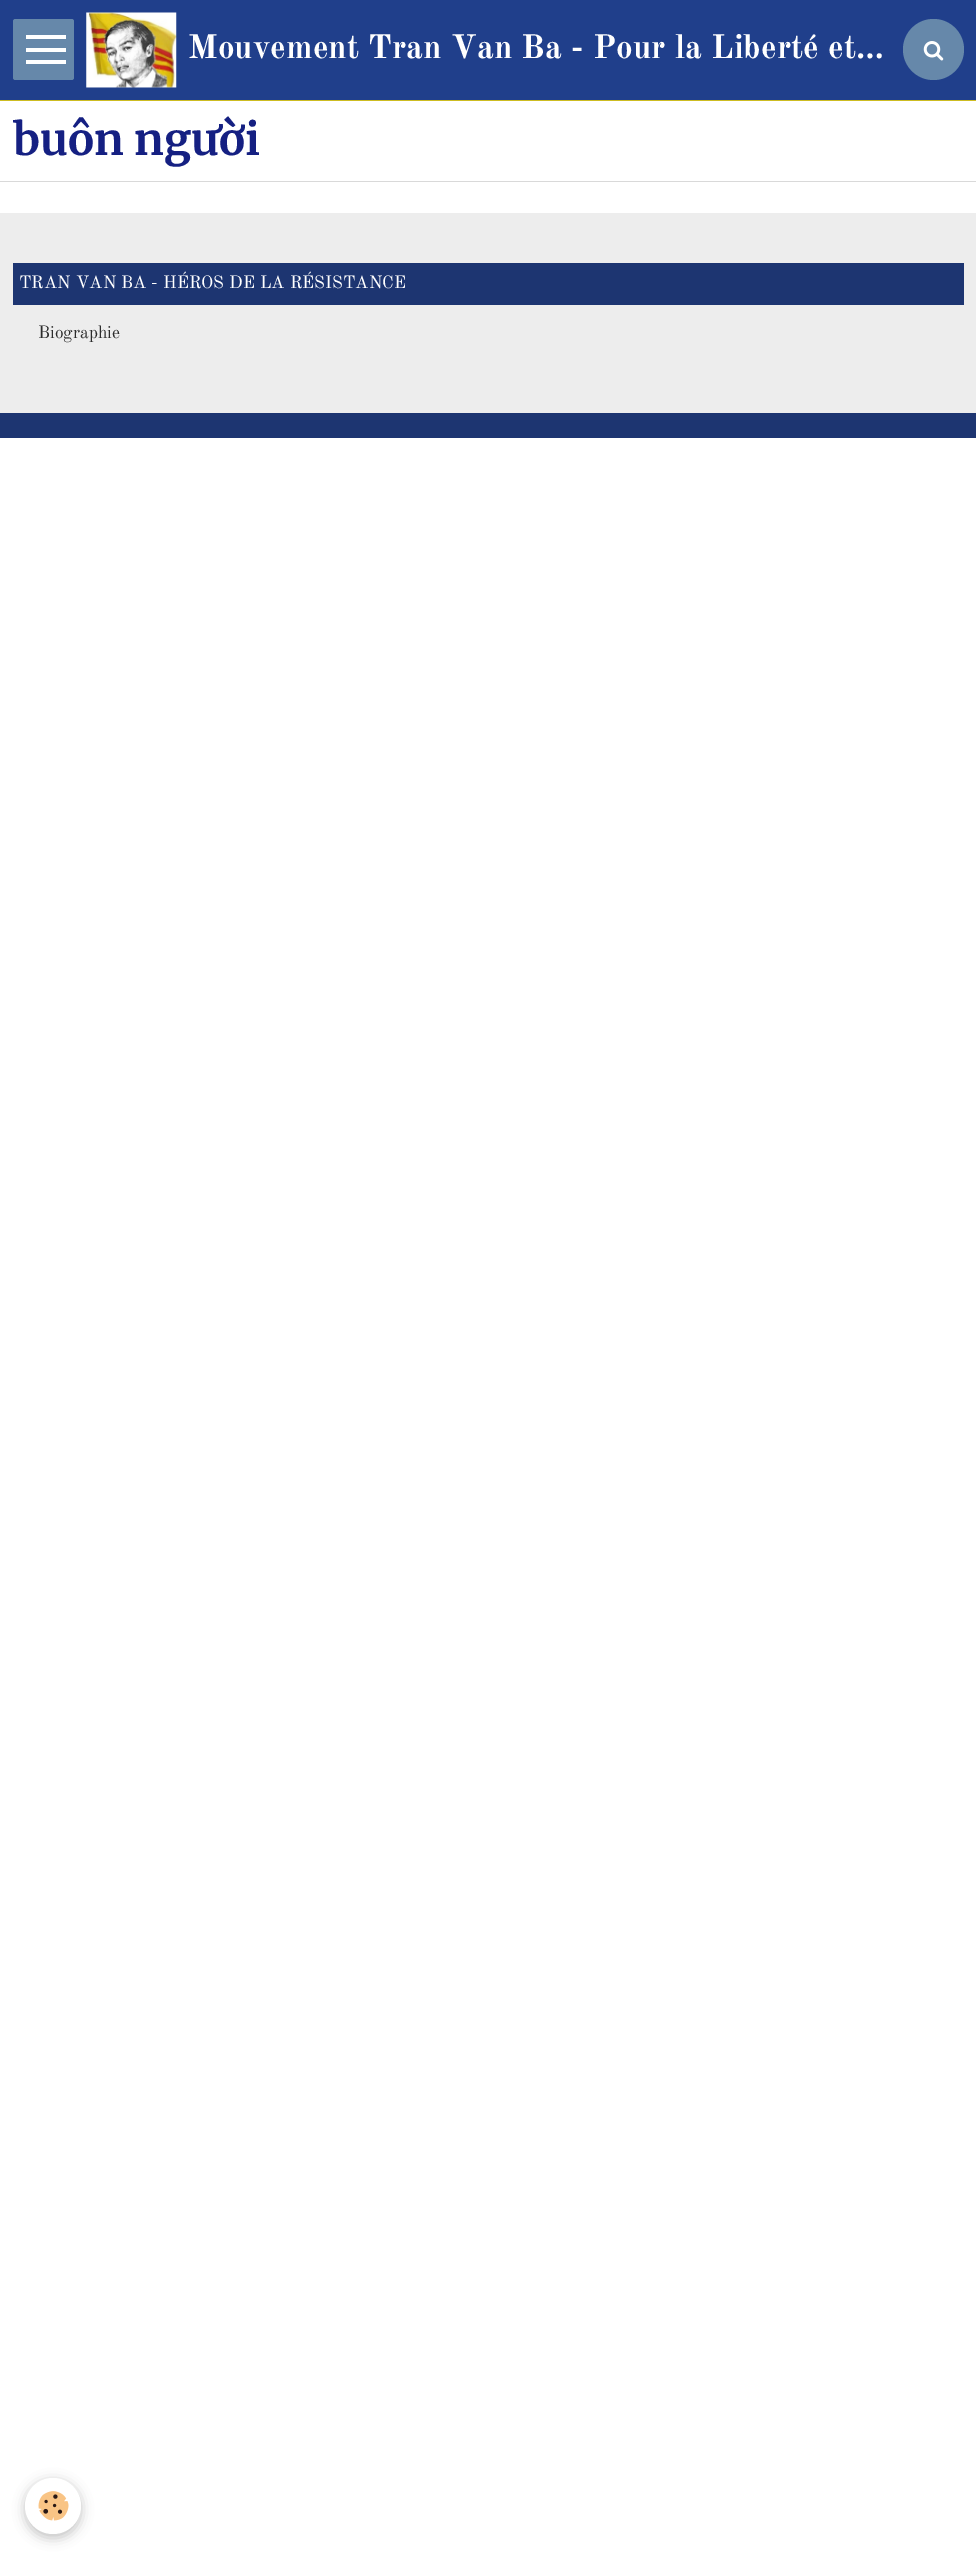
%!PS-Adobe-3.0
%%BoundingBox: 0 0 976 2557
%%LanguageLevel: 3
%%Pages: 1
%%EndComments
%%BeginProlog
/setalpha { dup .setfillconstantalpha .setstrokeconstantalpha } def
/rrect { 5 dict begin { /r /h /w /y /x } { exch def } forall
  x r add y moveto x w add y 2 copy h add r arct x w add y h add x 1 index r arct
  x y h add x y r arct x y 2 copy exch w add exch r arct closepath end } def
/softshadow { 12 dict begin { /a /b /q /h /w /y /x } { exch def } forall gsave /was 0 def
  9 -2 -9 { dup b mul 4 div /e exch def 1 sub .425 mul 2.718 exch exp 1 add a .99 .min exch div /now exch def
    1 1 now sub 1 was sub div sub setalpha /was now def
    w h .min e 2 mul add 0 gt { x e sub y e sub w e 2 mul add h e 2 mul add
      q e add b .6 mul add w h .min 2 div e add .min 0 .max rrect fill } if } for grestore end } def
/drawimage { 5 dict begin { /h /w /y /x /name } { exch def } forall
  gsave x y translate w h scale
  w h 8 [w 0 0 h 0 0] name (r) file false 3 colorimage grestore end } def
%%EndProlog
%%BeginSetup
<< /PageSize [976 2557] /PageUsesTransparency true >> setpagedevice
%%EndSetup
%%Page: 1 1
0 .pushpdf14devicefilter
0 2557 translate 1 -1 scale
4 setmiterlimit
1 setgray
0 0 976 2557 rectfill
0.125 0.247 0.545 setrgbcolor
0 0 976 100 rectfill
0.804 0.737 0.129 setrgbcolor
0 100 976 1 rectfill
0.4 0.533 0.667 setrgbcolor
13 19 61 61 2.5 rrect fill
1 setgray
26 48 40 4 rectfill
26 35 40 4 rectfill
26 60 40 4 rectfill
(images/1.raw) 86 12 91 76 drawimage
0.4 0.533 0.667 setrgbcolor
newpath 933.5 49.5 30.5 0 360 arc closepath fill
(images/2.raw) 923 41 21 20 drawimage
0.851 setgray
0 181 976 1 rectfill
0.929 setgray
0 213 976 200 rectfill
0.114 0.208 0.443 setrgbcolor
13 263 951 42 rectfill
0 413 976 25 rectfill
0 setgray
25 2481 56 57 28 6 0.24 softshadow
1 setgray
newpath 53 2506 28 0 360 arc closepath fill
(images/3.raw) 38 2491 31 30 drawimage
/OldStandardTT-Bold [33.25 0 0 -33.25 0 0] selectfont
188 58 moveto (Mouvement Tran Van Ba - Pour la Liberté et…) show
/Merriweather-Bold [43.75 0 0 -43.75 0 0] selectfont
0.082 0.125 0.51 setrgbcolor
13 155 moveto (buôn người) show
/OldStandardTT-Regular [17.5 0 0 -17.5 0 0] selectfont
1 setgray
19 288 moveto (TRAN VAN BA - HÉROS DE LA RÉSISTANCE) show
0.173 setgray
38 338 moveto (Biographie) show
.poppdf14devicefilter showpage
%%EOF
